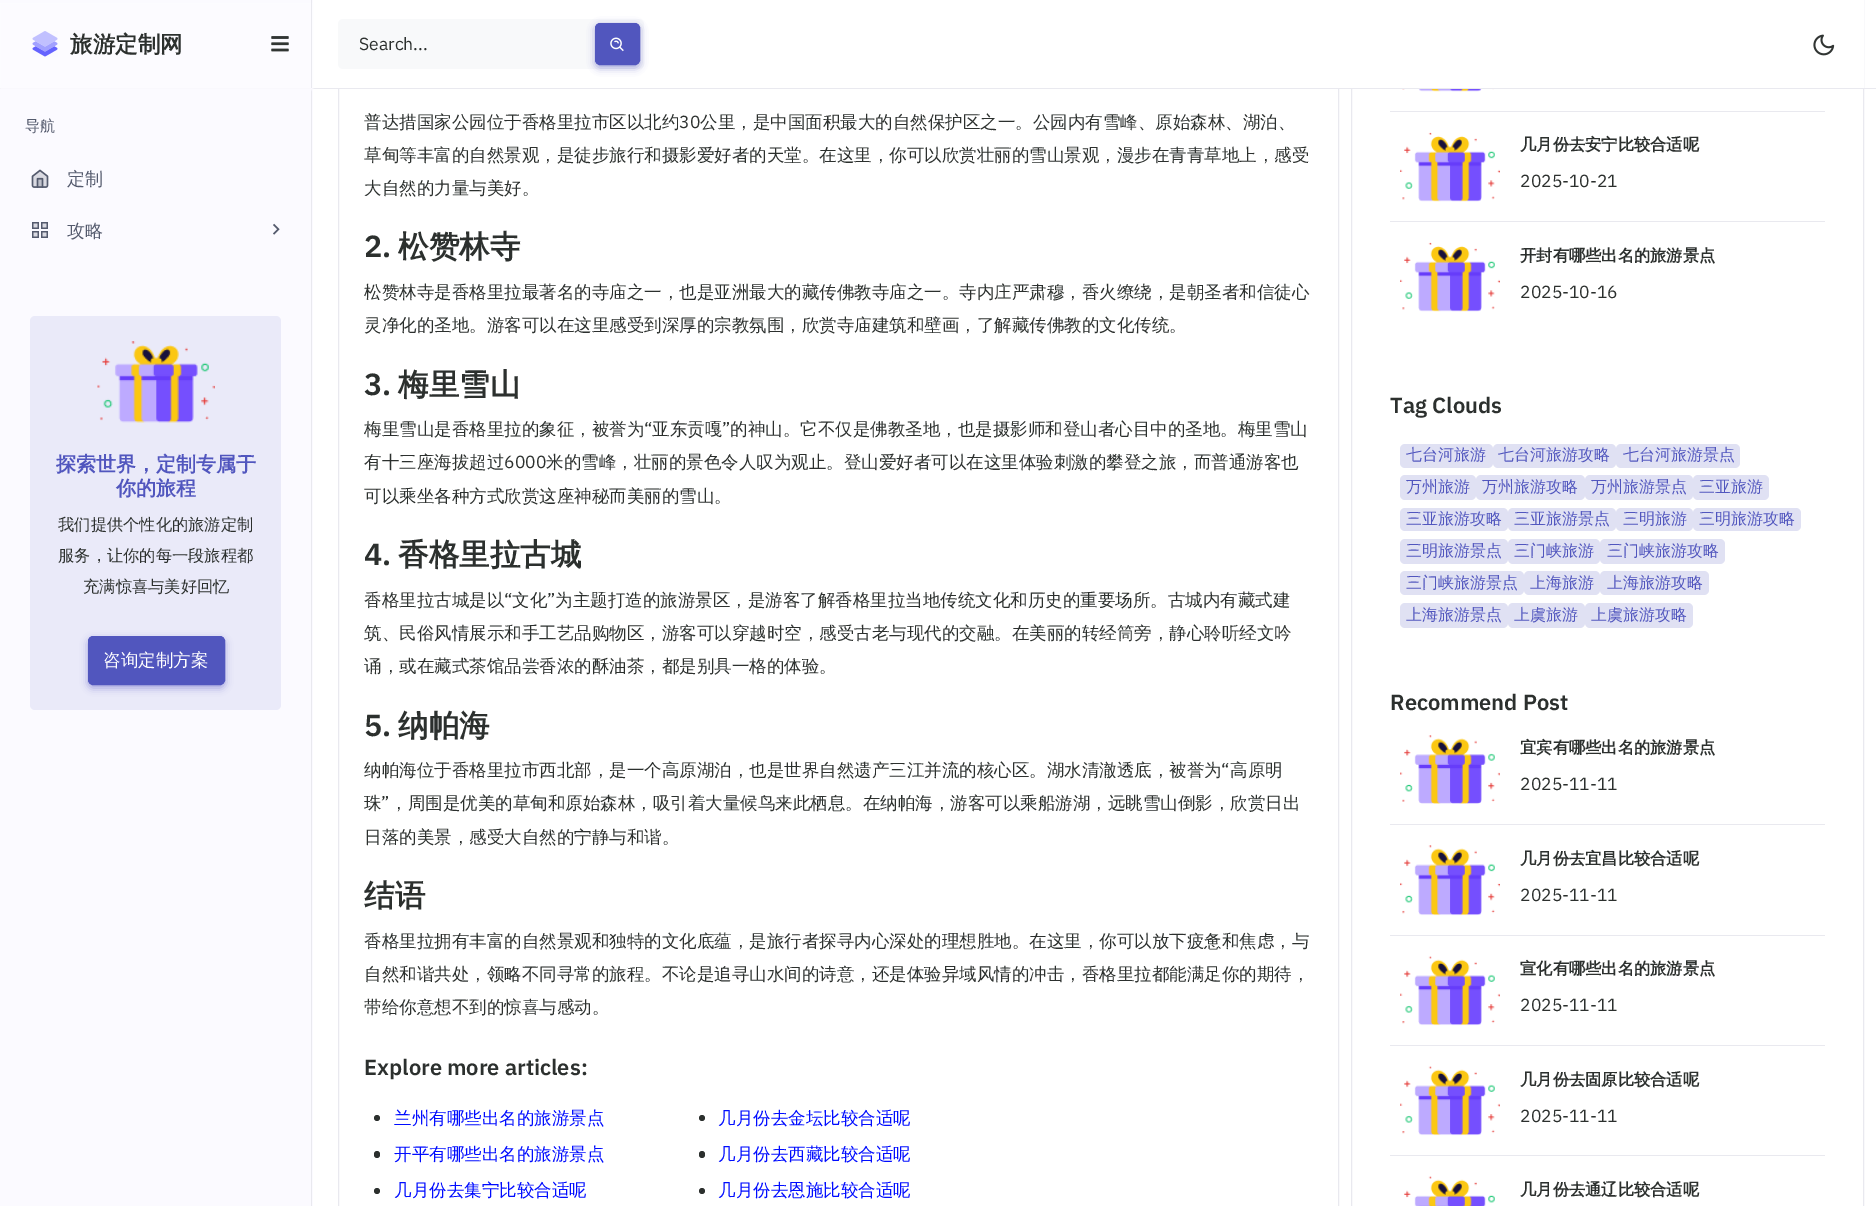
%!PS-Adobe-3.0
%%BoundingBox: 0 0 1876 1206
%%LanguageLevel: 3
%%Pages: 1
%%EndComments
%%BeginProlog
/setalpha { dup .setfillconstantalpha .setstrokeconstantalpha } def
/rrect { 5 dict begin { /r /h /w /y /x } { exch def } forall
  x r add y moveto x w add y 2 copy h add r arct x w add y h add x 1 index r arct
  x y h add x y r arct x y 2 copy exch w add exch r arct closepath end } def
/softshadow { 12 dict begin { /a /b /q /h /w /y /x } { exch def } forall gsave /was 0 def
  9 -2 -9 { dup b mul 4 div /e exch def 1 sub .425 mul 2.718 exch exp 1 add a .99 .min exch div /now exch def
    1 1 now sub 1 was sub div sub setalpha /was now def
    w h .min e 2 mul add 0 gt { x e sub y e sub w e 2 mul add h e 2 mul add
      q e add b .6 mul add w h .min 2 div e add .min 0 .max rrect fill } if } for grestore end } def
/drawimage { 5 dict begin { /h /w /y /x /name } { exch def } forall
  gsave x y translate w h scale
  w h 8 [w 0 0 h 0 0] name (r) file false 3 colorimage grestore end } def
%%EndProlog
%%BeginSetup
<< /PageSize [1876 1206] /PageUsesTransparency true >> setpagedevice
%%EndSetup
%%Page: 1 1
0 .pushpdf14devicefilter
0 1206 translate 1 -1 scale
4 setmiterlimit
1 setgray
0 0 1876 1206 rectfill
0.914 0.914 0.937 setrgbcolor
338.5 -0.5 1000 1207 rectstroke
1351.5 -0.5 512 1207 rectstroke
1 setgray
338 0 1526 88 rectfill
0.984 0.98 1 setrgbcolor
0 89 313 1117 rectfill
0.914 0.914 0.937 setrgbcolor
311 88 1 1118 rectfill
0 88 1876 1 rectfill
0.984 0.98 1 setrgbcolor
0 3 313 87 0 1 1 softshadow
0 0 313 3 rectfill
0.914 0.914 0.937 setrgbcolor
311 0 1 88 rectfill
(images/1.raw) 32 31 26 26 drawimage
(images/2.raw) 271 36 18 16 drawimage
0.973 0.976 0.98 setrgbcolor
338 19 306 50 5 rrect fill
0.318 0.337 0.745 setrgbcolor
595 25 45 43 5 4 0.5 softshadow
595.5 23.5 44 41 4.5 rrect gsave fill grestore
stroke
(images/3.raw) 610 37 14 15 drawimage
(images/4.raw) 1813 34 22 22 drawimage
(images/5.raw) 31 169 18 19 drawimage
(images/6.raw) 32 222 16 16 drawimage
(images/7.raw) 273 223 7 12 drawimage
0.918 0.918 0.976 setrgbcolor
30 316 251 394 5 rrect fill
(images/8.raw) 97 341 118 82 drawimage
0.318 0.337 0.745 setrgbcolor
88 639 137 49 5 4 0.5 softshadow
88.5 636.5 136 48 4.5 rrect gsave fill grestore
stroke
0.173 0.188 0.18 setrgbcolor
newpath 377 1118 3 0 360 arc closepath fill
374 1151 6 7 3 rrect fill
newpath 377 1191 3 0 360 arc closepath fill
newpath 702 1118 3 0 360 arc closepath fill
699 1151 6 7 3 rrect fill
newpath 702 1191 3 0 360 arc closepath fill
0.914 0.914 0.937 setrgbcolor
1390 111 435 1 rectfill
(images/9.raw) 1402 89 92 3 drawimage
1390 221 435 1 rectfill
(images/10.raw) 1400 132 100 70 drawimage
(images/10.raw) 1400 242 100 70 drawimage
0.878 0.882 0.953 setrgbcolor
1400 444 93 24 5 rrect fill
1493 444 123 24 5 rrect fill
1616 444 124 24 5 rrect fill
1400 475 76 25 5 rrect fill
1476 475 109 25 5 rrect fill
1585 475 108 25 5 rrect fill
1693 475 76 25 5 rrect fill
1400 508 108 23 5 rrect fill
1508 508 108 23 5 rrect fill
1616 508 77 23 5 rrect fill
1693 508 108 23 5 rrect fill
1400 539 108 25 5 rrect fill
1508 539 92 25 5 rrect fill
1600 539 125 25 5 rrect fill
1400 571 124 24 5 rrect fill
1524 571 76 24 5 rrect fill
1600 571 109 24 5 rrect fill
1400 603 108 25 5 rrect fill
1508 603 77 25 5 rrect fill
1585 603 108 25 5 rrect fill
0.914 0.914 0.937 setrgbcolor
1390 824 435 1 rectfill
(images/11.raw) 1400 735 100 69 drawimage
1390 935 435 1 rectfill
(images/12.raw) 1400 845 100 71 drawimage
1390 1045 435 1 rectfill
(images/13.raw) 1400 956 100 70 drawimage
1390 1155 435 1 rectfill
(images/13.raw) 1400 1066 100 70 drawimage
(images/14.raw) 1404 1176 91 30 drawimage
/WenQuanYiZenHei-Bold [22.5 0 0 -22.5 0 0] selectfont
0.173 0.188 0.18 setrgbcolor
70 52 moveto (旅游定制网) show
/IBMPlexSans-Regular [17.5 0 0 -17.5 0 0] selectfont
359 50 moveto (Search...) show
/WenQuanYiZenHei-Medium [15 0 0 -15 0 0] selectfont
0.329 0.353 0.427 setrgbcolor
25 131 moveto (导航) show
/WenQuanYiZenHei-Medium [18 0 0 -18 0 0] selectfont
67 185 moveto (定制) show
67 237 moveto (攻略) show
/WenQuanYiZenHei-Bold [20 0 0 -20 0 0] selectfont
0.318 0.337 0.745 setrgbcolor
56 471 moveto (探索世界，定制专属于) show
116 495 moveto (你的旅程) show
/WenQuanYiZenHei-Medium [16.25 0 0 -16.25 0 0] selectfont
0.173 0.188 0.18 setrgbcolor
58 530 moveto (我们提供个性化的旅游定制) show
58 561 moveto (服务，让你的每一段旅程都) show
83 592 moveto (充满惊喜与美好回忆) show
/WenQuanYiZenHei-Medium [17.5 0 0 -17.5 0 0] selectfont
1 setgray
103 666 moveto (咨询定制方案) show
0.173 0.188 0.18 setrgbcolor
364 128 moveto (普达措国家公园位于香格里拉市区以北约) show
/IBMPlexSans-Regular [17.5 0 0 -17.5 0 0] selectfont
679 128 moveto (30) show
/WenQuanYiZenHei-Medium [17.5 0 0 -17.5 0 0] selectfont
700 128 moveto (公里，是中国面积最大的自然保护区之一。公园内有雪峰、原始森林、湖泊、) show
364 161 moveto (草甸等丰富的自然景观，是徒步旅行和摄影爱好者的天堂。在这里，你可以欣赏壮丽的雪山景观，漫步在青青草地上，感受) show
364 194 moveto (大自然的力量与美好。) show
/IBMPlexSans-SemiBold [30.5 0 0 -30.5 0 0] selectfont
364 257 moveto (2.) show
/WenQuanYiZenHei-Bold [30.5 0 0 -30.5 0 0] selectfont
398 257 moveto (松赞林寺) show
/WenQuanYiZenHei-Medium [17.5 0 0 -17.5 0 0] selectfont
364 298 moveto (松赞林寺是香格里拉最著名的寺庙之一，也是亚洲最大的藏传佛教寺庙之一。寺内庄严肃穆，香火缭绕，是朝圣者和信徒心) show
364 331 moveto (灵净化的圣地。游客可以在这里感受到深厚的宗教氛围，欣赏寺庙建筑和壁画，了解藏传佛教的文化传统。) show
/IBMPlexSans-SemiBold [30.5 0 0 -30.5 0 0] selectfont
364 395 moveto (3.) show
/WenQuanYiZenHei-Bold [30.5 0 0 -30.5 0 0] selectfont
398 395 moveto (梅里雪山) show
/WenQuanYiZenHei-Medium [17.5 0 0 -17.5 0 0] selectfont
364 435 moveto (梅里雪山是香格里拉的象征，被誉为) show
/IBMPlexSans-Regular [17.5 0 0 -17.5 0 0] selectfont
644 435 moveto (“) show
/WenQuanYiZenHei-Medium [17.5 0 0 -17.5 0 0] selectfont
652 435 moveto (亚东贡嘎) show
/IBMPlexSans-Regular [17.5 0 0 -17.5 0 0] selectfont
722 435 moveto (”) show
/WenQuanYiZenHei-Medium [17.5 0 0 -17.5 0 0] selectfont
730 435 moveto (的神山。它不仅是佛教圣地，也是摄影师和登山者心目中的圣地。梅里雪山) show
364 468 moveto (有十三座海拔超过) show
/IBMPlexSans-Regular [17.5 0 0 -17.5 0 0] selectfont
504 468 moveto (6000) show
/WenQuanYiZenHei-Medium [17.5 0 0 -17.5 0 0] selectfont
546 468 moveto (米的雪峰，壮丽的景色令人叹为观止。登山爱好者可以在这里体验刺激的攀登之旅，而普通游客也) show
364 502 moveto (可以乘坐各种方式欣赏这座神秘而美丽的雪山。) show
/IBMPlexSans-SemiBold [30.5 0 0 -30.5 0 0] selectfont
364 565 moveto (4.) show
/WenQuanYiZenHei-Bold [30.5 0 0 -30.5 0 0] selectfont
398 565 moveto (香格里拉古城) show
/WenQuanYiZenHei-Medium [17.5 0 0 -17.5 0 0] selectfont
364 606 moveto (香格里拉古城是以) show
/IBMPlexSans-Regular [17.5 0 0 -17.5 0 0] selectfont
504 606 moveto (“) show
/WenQuanYiZenHei-Medium [17.5 0 0 -17.5 0 0] selectfont
512 606 moveto (文化) show
/IBMPlexSans-Regular [17.5 0 0 -17.5 0 0] selectfont
547 606 moveto (”) show
/WenQuanYiZenHei-Medium [17.5 0 0 -17.5 0 0] selectfont
555 606 moveto (为主题打造的旅游景区，是游客了解香格里拉当地传统文化和历史的重要场所。古城内有藏式建) show
364 639 moveto (筑、民俗风情展示和手工艺品购物区，游客可以穿越时空，感受古老与现代的交融。在美丽的转经筒旁，静心聆听经文吟) show
364 672 moveto (诵，或在藏式茶馆品尝香浓的酥油茶，都是别具一格的体验。) show
/IBMPlexSans-SemiBold [30.5 0 0 -30.5 0 0] selectfont
364 736 moveto (5.) show
/WenQuanYiZenHei-Bold [30.5 0 0 -30.5 0 0] selectfont
398 736 moveto (纳帕海) show
/WenQuanYiZenHei-Medium [17.5 0 0 -17.5 0 0] selectfont
364 776 moveto (纳帕海位于香格里拉市西北部，是一个高原湖泊，也是世界自然遗产三江并流的核心区。湖水清澈透底，被誉为) show
/IBMPlexSans-Regular [17.5 0 0 -17.5 0 0] selectfont
1221 776 moveto (“) show
/WenQuanYiZenHei-Medium [17.5 0 0 -17.5 0 0] selectfont
1230 776 moveto (高原明) show
364 809 moveto (珠) show
/IBMPlexSans-Regular [17.5 0 0 -17.5 0 0] selectfont
381 809 moveto (”) show
/WenQuanYiZenHei-Medium [17.5 0 0 -17.5 0 0] selectfont
390 809 moveto (，周围是优美的草甸和原始森林，吸引着大量候鸟来此栖息。在纳帕海，游客可以乘船游湖，远眺雪山倒影，欣赏日出) show
364 843 moveto (日落的美景，感受大自然的宁静与和谐。) show
/WenQuanYiZenHei-Bold [30.5 0 0 -30.5 0 0] selectfont
364 906 moveto (结语) show
/WenQuanYiZenHei-Medium [17.5 0 0 -17.5 0 0] selectfont
364 947 moveto (香格里拉拥有丰富的自然景观和独特的文化底蕴，是旅行者探寻内心深处的理想胜地。在这里，你可以放下疲惫和焦虑，与) show
364 980 moveto (自然和谐共处，领略不同寻常的旅程。不论是追寻山水间的诗意，还是体验异域风情的冲击，香格里拉都能满足你的期待，) show
364 1013 moveto (带给你意想不到的惊喜与感动。) show
/IBMPlexSans-SemiBold [21.9 0 0 -21.9 0 0] selectfont
364 1075 moveto (Explore more articles:) show
/WenQuanYiZenHei-Medium [17.5 0 0 -17.5 0 0] selectfont
0 0.047 1 setrgbcolor
394 1124 moveto (兰州有哪些出名的旅游景点) show
394 1160 moveto (开平有哪些出名的旅游景点) show
394 1196 moveto (几月份去集宁比较合适呢) show
718 1124 moveto (几月份去金坛比较合适呢) show
718 1160 moveto (几月份去西藏比较合适呢) show
718 1196 moveto (几月份去恩施比较合适呢) show
/WenQuanYiZenHei-Bold [16.25 0 0 -16.25 0 0] selectfont
0.173 0.188 0.18 setrgbcolor
1520 150 moveto (几月份去安宁比较合适呢) show
/IBMPlexSans-Regular [17.5 0 0 -17.5 0 0] selectfont
1520 187 moveto (2025-10-21) show
/WenQuanYiZenHei-Bold [16.25 0 0 -16.25 0 0] selectfont
1520 261 moveto (开封有哪些出名的旅游景点) show
/IBMPlexSans-Regular [17.5 0 0 -17.5 0 0] selectfont
1520 298 moveto (2025-10-16) show
/IBMPlexSans-SemiBold [21.9 0 0 -21.9 0 0] selectfont
1390 413 moveto (Tag Clouds) show
/WenQuanYiZenHei-Medium [16 0 0 -16 0 0] selectfont
0.318 0.337 0.745 setrgbcolor
1406 460 moveto (七台河旅游) show
1498 460 moveto (七台河旅游攻略) show
1623 460 moveto (七台河旅游景点) show
1406 492 moveto (万州旅游) show
1482 492 moveto (万州旅游攻略) show
1591 492 moveto (万州旅游景点) show
1699 492 moveto (三亚旅游) show
1406 524 moveto (三亚旅游攻略) show
1514 524 moveto (三亚旅游景点) show
1623 524 moveto (三明旅游) show
1699 524 moveto (三明旅游攻略) show
1406 556 moveto (三明旅游景点) show
1514 556 moveto (三门峡旅游) show
1607 556 moveto (三门峡旅游攻略) show
1406 588 moveto (三门峡旅游景点) show
1530 588 moveto (上海旅游) show
1607 588 moveto (上海旅游攻略) show
1406 620 moveto (上海旅游景点) show
1514 620 moveto (上虞旅游) show
1591 620 moveto (上虞旅游攻略) show
/IBMPlexSans-SemiBold [21.9 0 0 -21.9 0 0] selectfont
0.173 0.188 0.18 setrgbcolor
1390 710 moveto (Recommend Post) show
/WenQuanYiZenHei-Bold [16.25 0 0 -16.25 0 0] selectfont
1520 753 moveto (宜宾有哪些出名的旅游景点) show
/IBMPlexSans-Regular [17.5 0 0 -17.5 0 0] selectfont
1520 790 moveto (2025-11-11) show
/WenQuanYiZenHei-Bold [16.25 0 0 -16.25 0 0] selectfont
1520 864 moveto (几月份去宜昌比较合适呢) show
/IBMPlexSans-Regular [17.5 0 0 -17.5 0 0] selectfont
1520 901 moveto (2025-11-11) show
/WenQuanYiZenHei-Bold [16.25 0 0 -16.25 0 0] selectfont
1520 974 moveto (宣化有哪些出名的旅游景点) show
/IBMPlexSans-Regular [17.5 0 0 -17.5 0 0] selectfont
1520 1011 moveto (2025-11-11) show
/WenQuanYiZenHei-Bold [16.25 0 0 -16.25 0 0] selectfont
1520 1085 moveto (几月份去固原比较合适呢) show
/IBMPlexSans-Regular [17.5 0 0 -17.5 0 0] selectfont
1520 1122 moveto (2025-11-11) show
/WenQuanYiZenHei-Bold [16.25 0 0 -16.25 0 0] selectfont
1520 1195 moveto (几月份去通辽比较合适呢) show
.poppdf14devicefilter showpage
%%EOF
